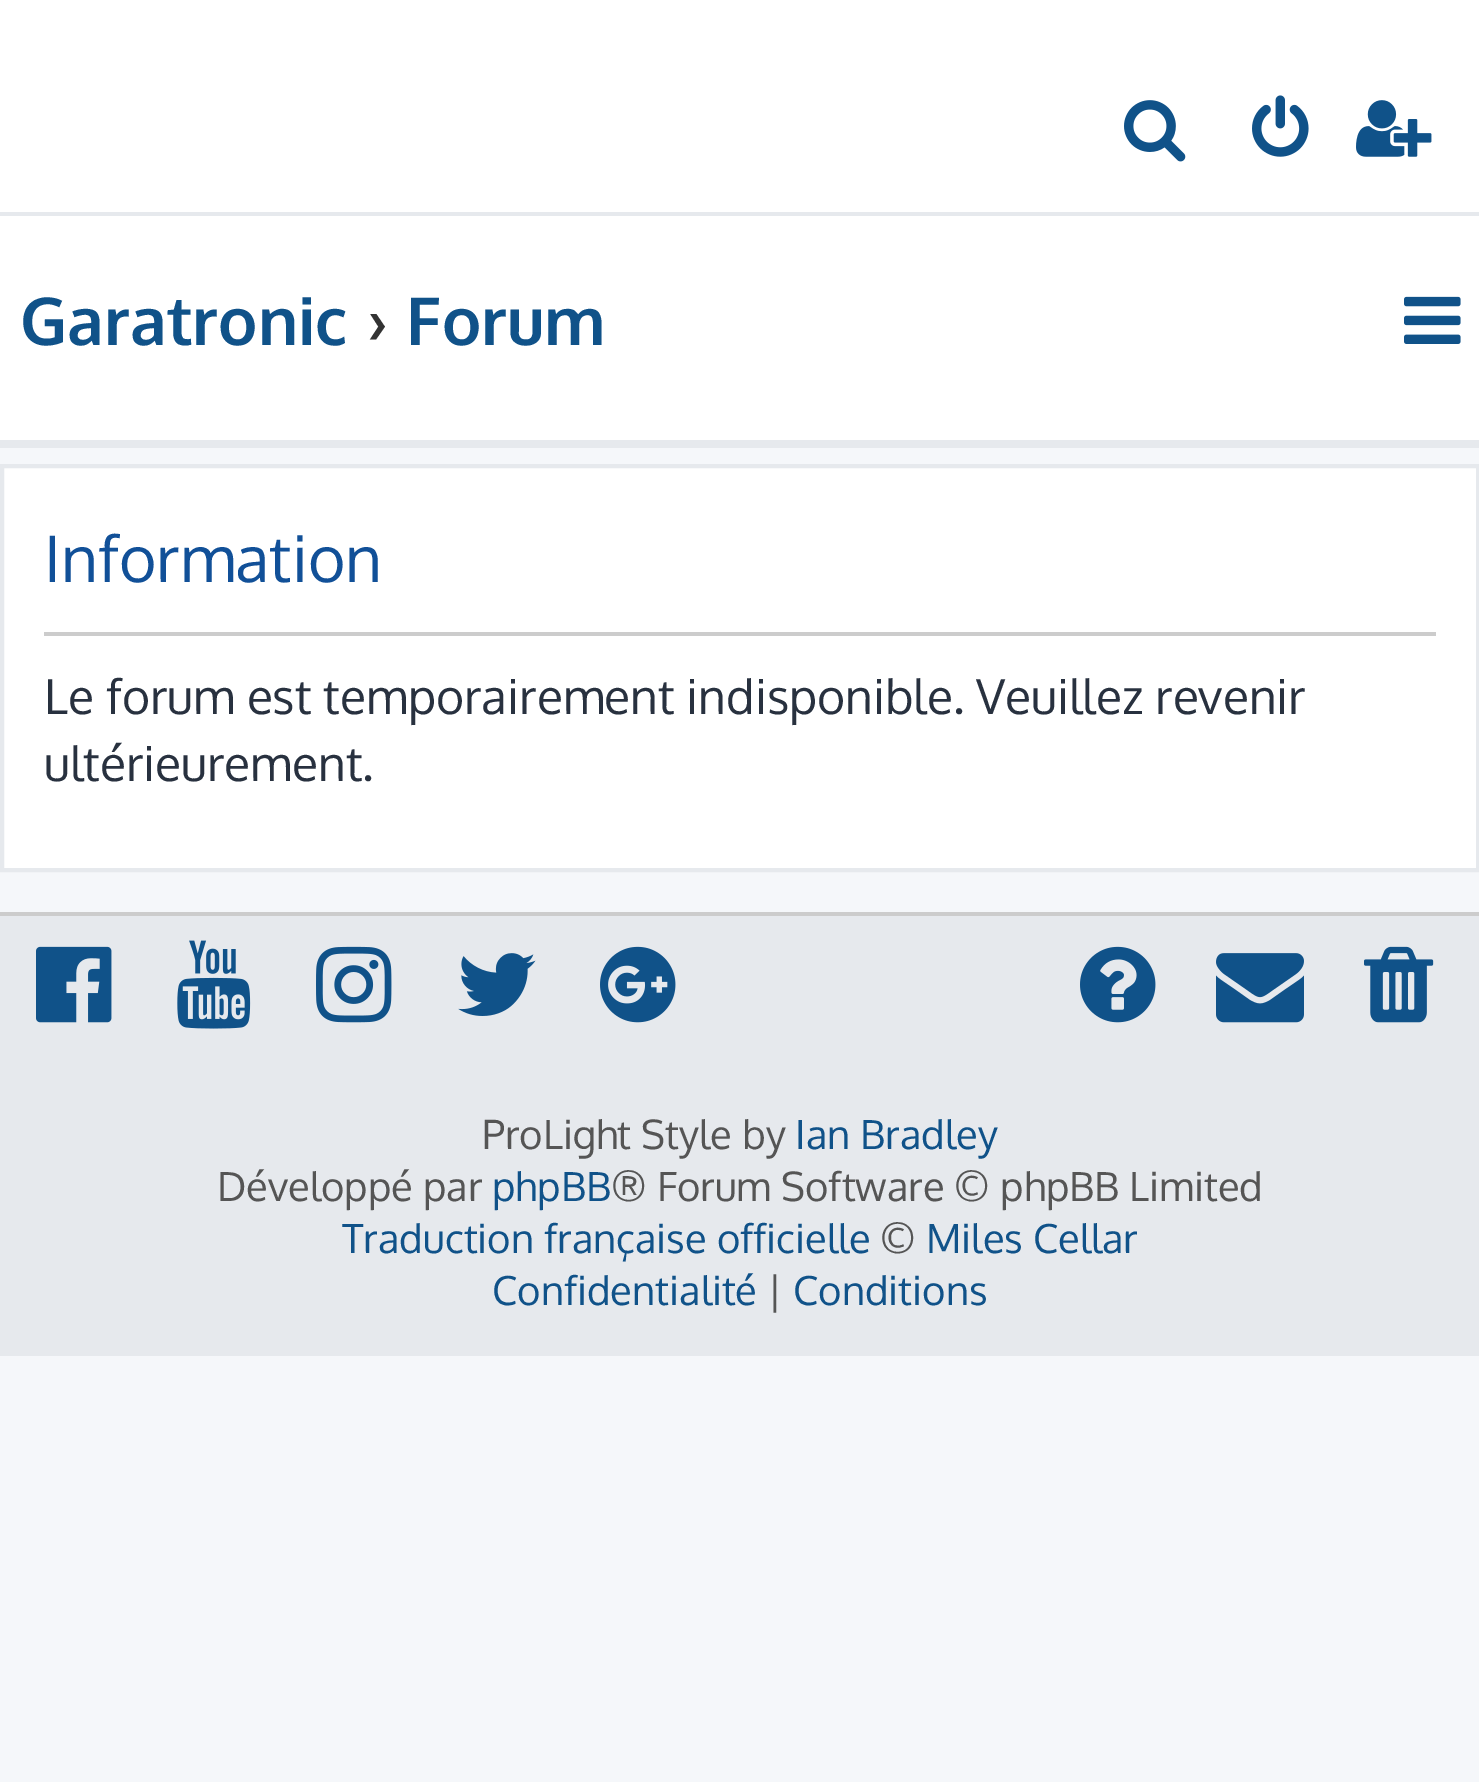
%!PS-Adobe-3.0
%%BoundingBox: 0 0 1479 1782
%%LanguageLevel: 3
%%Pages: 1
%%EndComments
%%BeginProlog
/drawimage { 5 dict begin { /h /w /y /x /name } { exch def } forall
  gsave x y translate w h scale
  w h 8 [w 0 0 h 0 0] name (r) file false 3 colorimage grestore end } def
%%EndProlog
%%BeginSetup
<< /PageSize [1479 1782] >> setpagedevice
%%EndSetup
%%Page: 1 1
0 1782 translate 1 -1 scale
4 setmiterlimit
0.961 0.969 0.98 setrgbcolor
0 0 1479 1782 rectfill
1 setgray
0 0 1479 212 rectfill
0.902 0.914 0.929 setrgbcolor
0 212 1479 4 rectfill
(images/1.raw) 1124 100 62 62 drawimage
(images/2.raw) 1252 95 57 62 drawimage
(images/3.raw) 1356 100 76 57 drawimage
1 setgray
0 216 1479 224 rectfill
0.902 0.914 0.929 setrgbcolor
0 440 1479 8 rectfill
(images/4.raw) 1404 296 57 48 drawimage
1 setgray
newpath 2 466 moveto 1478 466 lineto 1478 870 lineto 2 870 lineto closepath gsave fill grestore
0.902 0.914 0.929 setrgbcolor
4 setlinewidth
stroke
0.8 setgray
44 632 1392 4 rectfill
0.902 0.914 0.929 setrgbcolor
0 916 1479 440 rectfill
0.8 setgray
0 912 1479 4 rectfill
(images/5.raw) 36 946 76 77 drawimage
(images/6.raw) 177 940 74 89 drawimage
(images/7.raw) 316 946 76 77 drawimage
(images/8.raw) 458 953 78 63 drawimage
(images/9.raw) 600 946 76 77 drawimage
(images/10.raw) 1080 946 76 77 drawimage
(images/11.raw) 1216 953 88 70 drawimage
(images/12.raw) 1364 946 70 77 drawimage
/Oxygen-Bold [66 0 0 -66 0 0] selectfont
0.063 0.322 0.537 setrgbcolor
20 345 moveto (Garatronic) show
0.2 setgray
368 345 moveto (›) show
0.063 0.322 0.537 setrgbcolor
406 345 moveto (Forum) show
/Oxygen-Regular [64 0 0 -64 0 0] selectfont
0.067 0.314 0.596 setrgbcolor
44 582 moveto (Information) show
/Oxygen-Regular [48 0 0 -48 0 0] selectfont
0.157 0.192 0.247 setrgbcolor
44 714 moveto (Le forum est temporairement indisponible. Veuillez revenir) show
44 781 moveto (ultérieurement.) show
/Oxygen-Regular [40 0 0 -40 0 0] selectfont
0.333 setgray
482 1149 moveto (ProLight Style by) show
0.063 0.322 0.537 setrgbcolor
795 1149 moveto (Ian Bradley) show
0.333 setgray
217 1201 moveto (Développé par) show
0.063 0.322 0.537 setrgbcolor
492 1201 moveto (phpBB) show
0.333 setgray
611 1201 moveto (® Forum Software © phpBB Limited) show
0.063 0.322 0.537 setrgbcolor
342 1253 moveto (Traduction française officielle) show
0.333 setgray
880 1253 moveto (©) show
0.063 0.322 0.537 setrgbcolor
926 1253 moveto (Miles Cellar) show
492 1305 moveto (Confidentialité) show
0.333 setgray
767 1305 moveto (|) show
0.063 0.322 0.537 setrgbcolor
793 1305 moveto (Conditions) show
showpage
%%EOF
